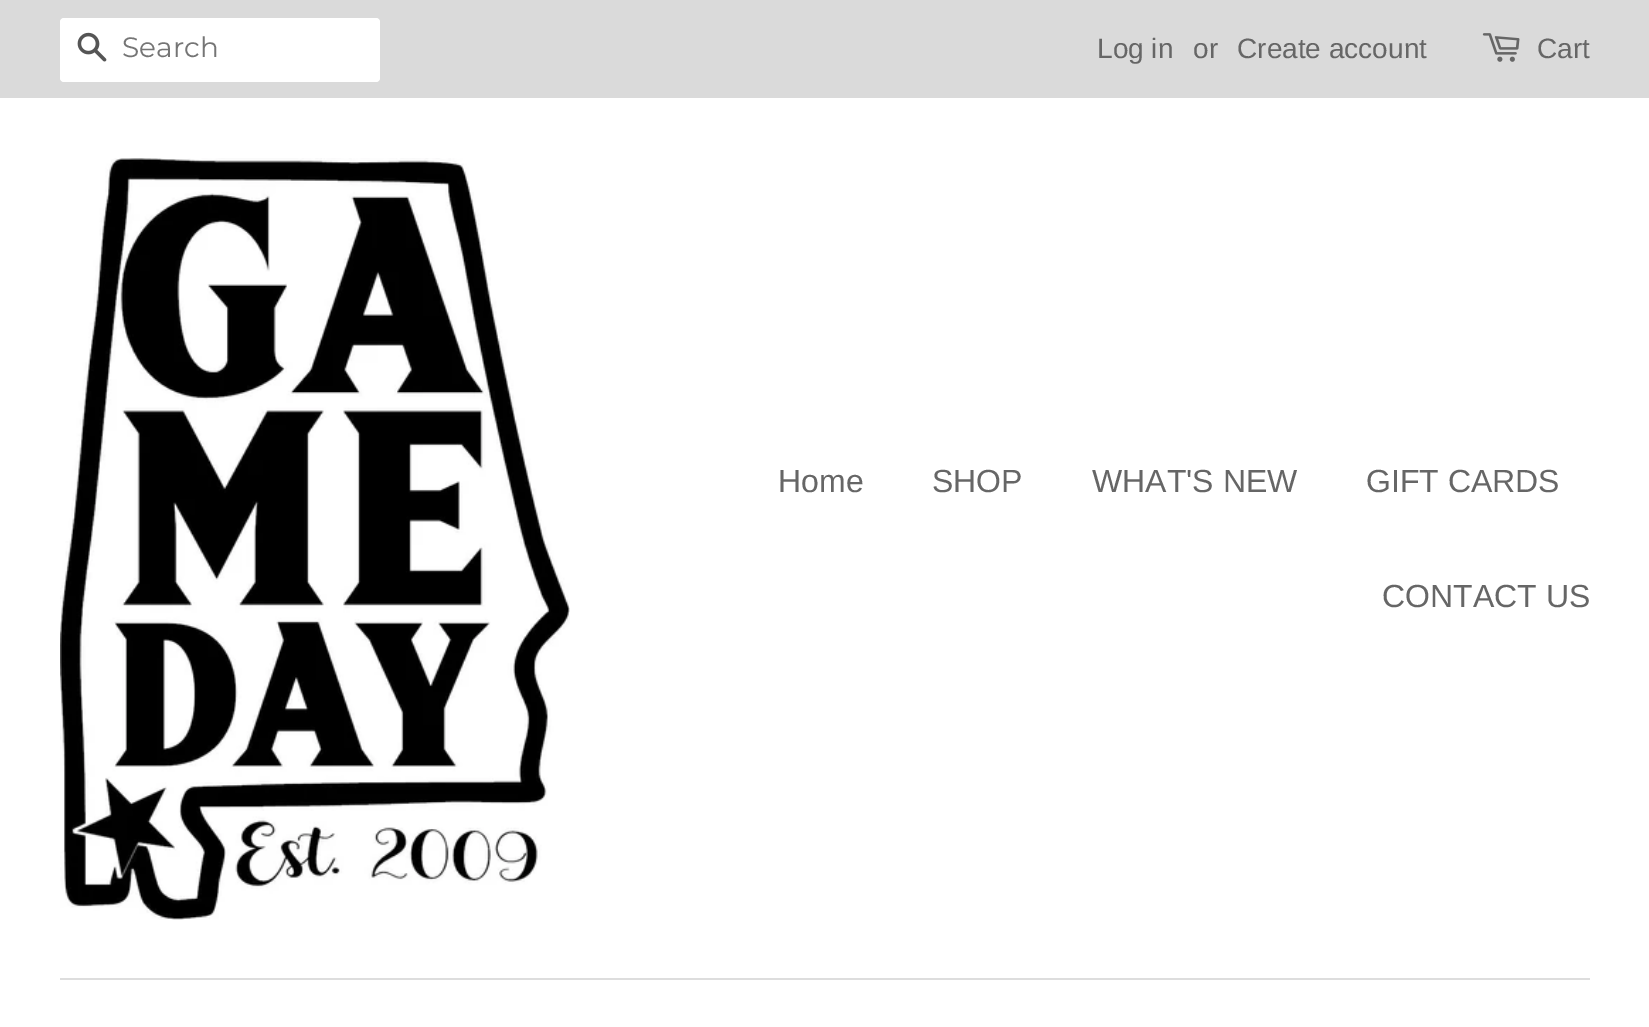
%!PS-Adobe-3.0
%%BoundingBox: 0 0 1649 1027
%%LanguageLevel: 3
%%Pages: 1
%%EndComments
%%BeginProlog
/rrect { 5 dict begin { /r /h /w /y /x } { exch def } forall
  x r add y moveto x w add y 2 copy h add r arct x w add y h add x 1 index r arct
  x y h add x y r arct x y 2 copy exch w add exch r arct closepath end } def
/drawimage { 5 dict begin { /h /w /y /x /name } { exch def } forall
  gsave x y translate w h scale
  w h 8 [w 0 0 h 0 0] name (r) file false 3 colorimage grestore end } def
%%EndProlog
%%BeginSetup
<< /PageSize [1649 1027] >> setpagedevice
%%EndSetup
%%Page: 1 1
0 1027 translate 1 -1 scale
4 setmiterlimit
1 setgray
0 0 1649 1027 rectfill
0.855 setgray
0 0 1649 98 rectfill
1 setgray
60 18 320 64 4 rrect fill
(images/1.raw) 77 32 30 30 drawimage
(images/2.raw) 1482 33 38 29 drawimage
0.867 setgray
60 978 1530 2 rectfill
(images/3.raw) 60 158 510 762 drawimage
/Montserrat-Regular [28 0 0 -28 0 0] selectfont
0.459 setgray
122 57 moveto (Search) show
/LiberationSans-Regular [28 0 0 -28 0 0] selectfont
0.4 setgray
1097 58 moveto (Log in) show
1193 58 moveto (or) show
1237 58 moveto (Create account) show
1537 58 moveto (Cart) show
/LiberationSans-Regular [32 0 0 -32 0 0] selectfont
778 492 moveto (Home) show
932 492 moveto (SHOP) show
1092 492 moveto (WHAT'S NEW) show
1366 492 moveto (GIFT CARDS) show
1382 607 moveto (CONTACT US) show
showpage
%%EOF
